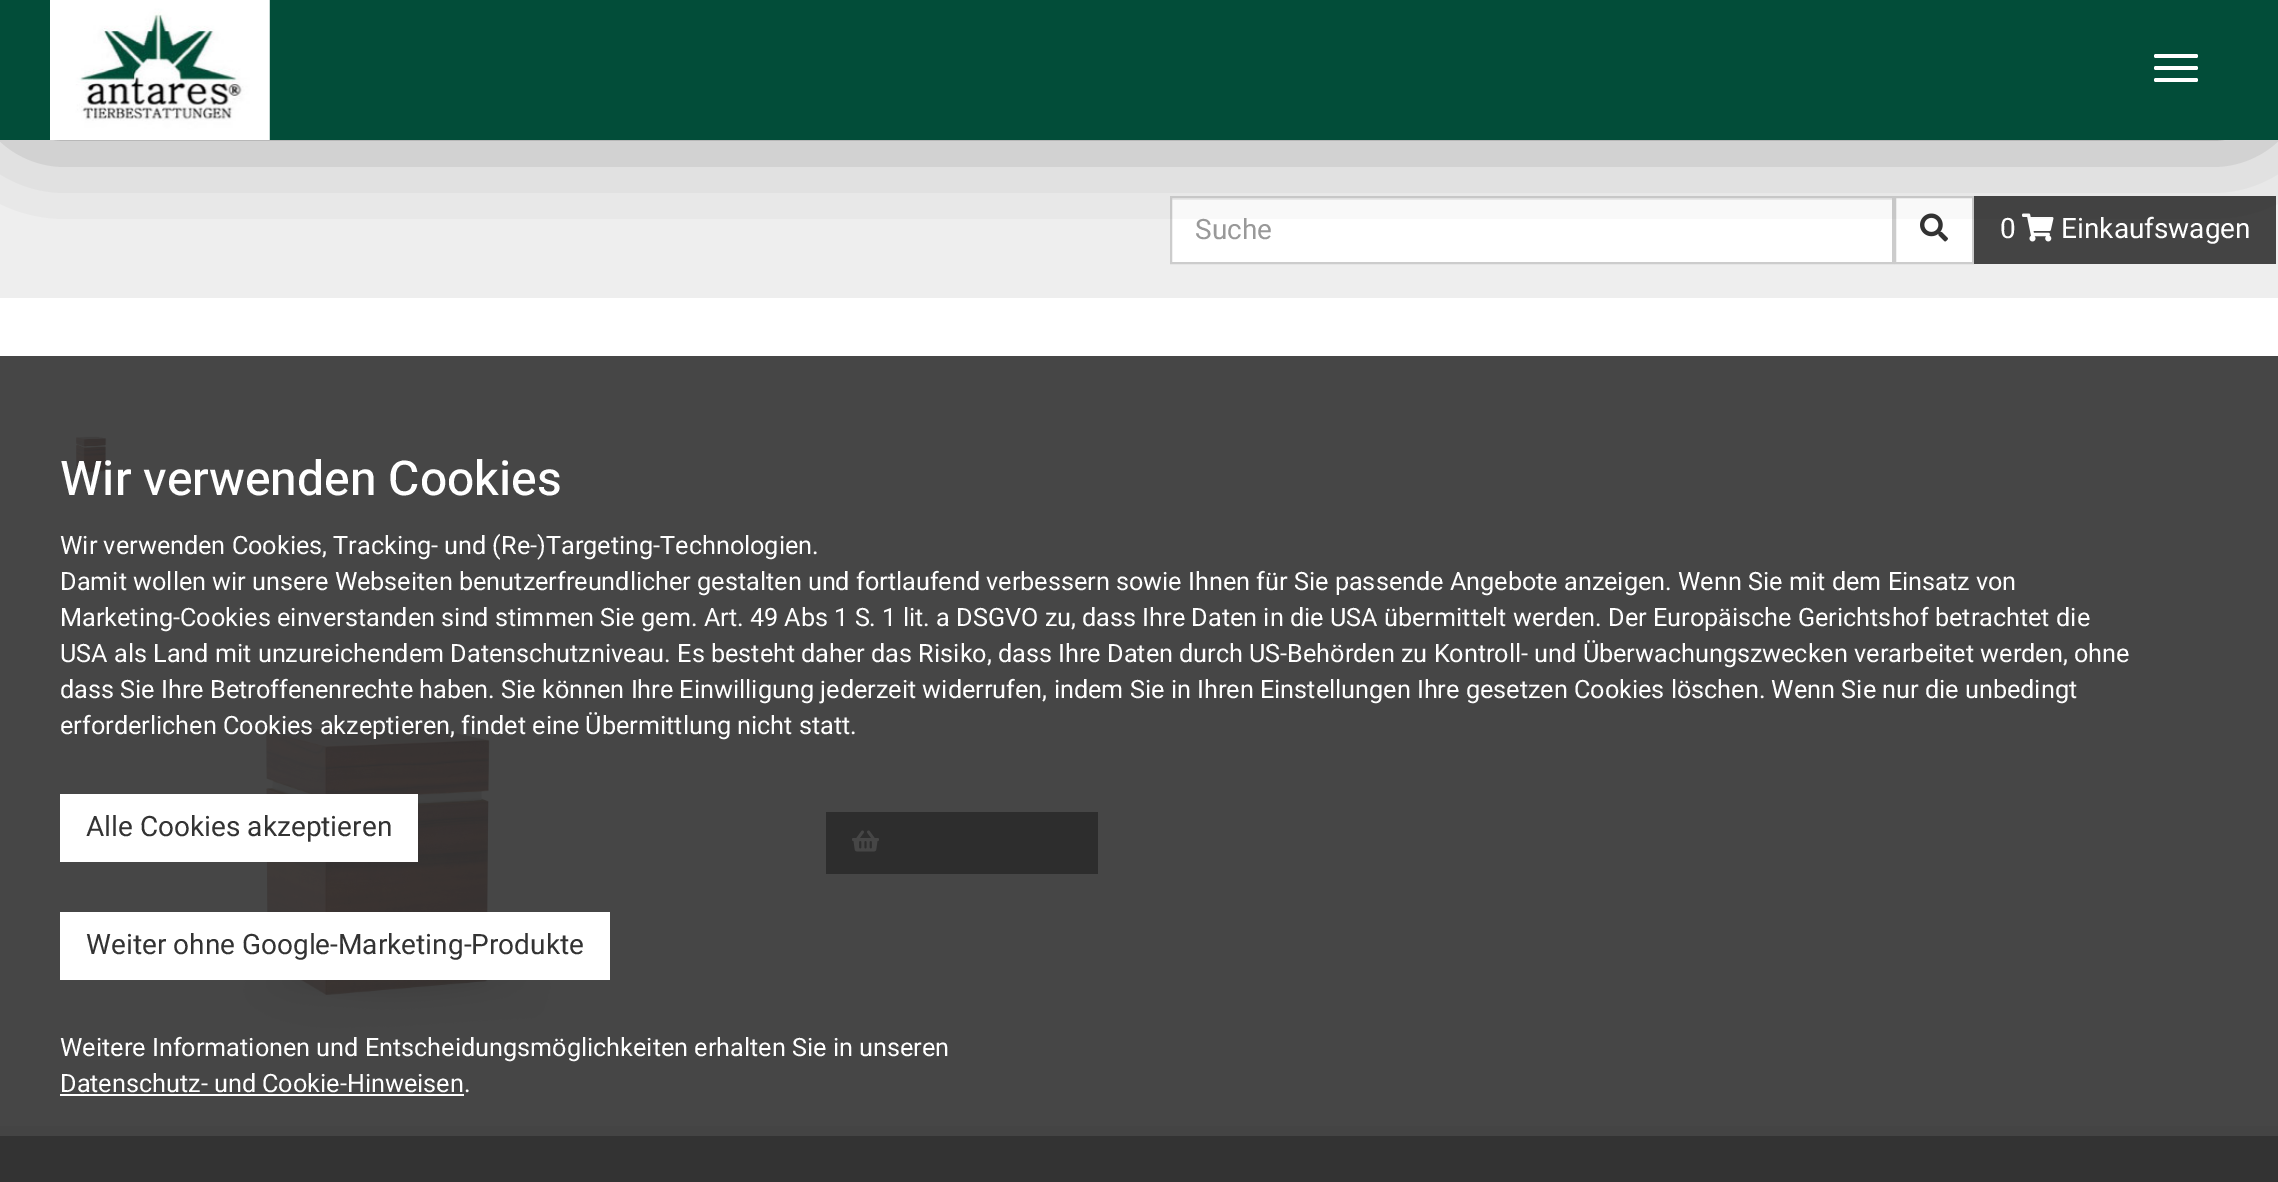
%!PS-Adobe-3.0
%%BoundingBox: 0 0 2278 1182
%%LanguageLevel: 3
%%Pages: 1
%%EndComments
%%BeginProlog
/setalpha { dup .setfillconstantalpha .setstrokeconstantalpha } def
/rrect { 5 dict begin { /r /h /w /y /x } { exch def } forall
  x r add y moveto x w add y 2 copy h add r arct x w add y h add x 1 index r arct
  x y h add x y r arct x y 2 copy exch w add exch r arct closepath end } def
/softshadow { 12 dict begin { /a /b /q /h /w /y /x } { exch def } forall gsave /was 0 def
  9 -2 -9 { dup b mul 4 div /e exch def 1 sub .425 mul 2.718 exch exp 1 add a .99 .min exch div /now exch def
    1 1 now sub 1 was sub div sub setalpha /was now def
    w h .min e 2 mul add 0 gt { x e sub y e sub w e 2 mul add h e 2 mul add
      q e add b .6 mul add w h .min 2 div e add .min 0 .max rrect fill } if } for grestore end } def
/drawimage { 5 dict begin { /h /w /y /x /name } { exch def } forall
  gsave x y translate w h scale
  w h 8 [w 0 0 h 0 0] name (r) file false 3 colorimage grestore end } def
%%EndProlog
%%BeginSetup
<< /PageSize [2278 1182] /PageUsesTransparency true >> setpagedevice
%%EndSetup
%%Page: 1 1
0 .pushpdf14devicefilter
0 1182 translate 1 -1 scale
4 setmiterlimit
0.933 setgray
0 0 2278 1182 rectfill
1 setgray
1172 200 720 62 rectfill
0.8 setgray
2 setlinewidth
1171 197 722 66 rectstroke
1 setgray
newpath 1895 197 moveto 1973 197 lineto 1973 263 lineto 1895 263 lineto closepath gsave fill grestore
0.8 setgray
stroke
(images/2.raw) 1920 213 28 29 drawimage
0.267 setgray
1974 196 302 68 rectfill
(images/3.raw) 2022 213 32 29 drawimage
0 setgray
34 10 2210 92 0 52 0.75 softshadow
0.008 0.302 0.224 setrgbcolor
0 0 2278 140 rectfill
(images/1.raw) 50 0 220 140 drawimage
1 setgray
2154 54 44 4 2 rrect fill
2154 66 44 4 2 rrect fill
2154 78 44 4 2 rrect fill
0 298 2278 828 rectfill
(images/4.raw) 72 436 43 42 drawimage
(images/5.raw) 237 725 323 310 drawimage
0 setgray
826 812 272 62 rectfill
(images/6.raw) 852 830 27 22 drawimage
0.2 setgray
0 1136 2278 46 rectfill
0.9 setalpha
0.196 setgray
0 356 2278 780 rectfill
1 setalpha
1 setgray
60 794 358 68 rectfill
60 912 550 68 rectfill
60 1094 404 2 rectfill
/Heebo-Regular [28 0 0 -28 0 0] selectfont
0.6 setgray
1195 239 moveto (Suche) show
1 setgray
2000 238 moveto (0) show
2061 238 moveto (Einkaufswagen) show
/Heebo-Medium [48 0 0 -48 0 0] selectfont
60 495 moveto (Wir verwenden Cookies) show
/Heebo-Regular [25.2 0 0 -25.2 0 0] selectfont
60 554 moveto (Wir verwenden Cookies, Tracking- und \(Re-\)Targeting-Technologien.) show
60 590 moveto (Damit wollen wir unsere Webseiten benutzerfreundlicher gestalten und fortlaufend verbessern sowie Ihnen für Sie passende Angebote anzeigen. Wenn Sie mit dem Einsatz von) show
60 626 moveto (Marketing-Cookies einverstanden sind stimmen Sie gem. Art. 49 Abs 1 S. 1 lit. a DSGVO zu, dass Ihre Daten in die USA übermittelt werden. Der Europäische Gerichtshof betrachtet die) show
60 662 moveto (USA als Land mit unzureichendem Datenschutzniveau. Es besteht daher das Risiko, dass Ihre Daten durch US-Behörden zu Kontroll- und Überwachungszwecken verarbeitet werden, ohne) show
60 698 moveto (dass Sie Ihre Betroffenenrechte haben. Sie können Ihre Einwilligung jederzeit widerrufen, indem Sie in Ihren Einstellungen Ihre gesetzen Cookies löschen. Wenn Sie nur die unbedingt) show
60 734 moveto (erforderlichen Cookies akzeptieren, findet eine Übermittlung nicht statt.) show
/Heebo-Regular [28 0 0 -28 0 0] selectfont
0.2 setgray
86 836 moveto (Alle Cookies akzeptieren) show
86 954 moveto (Weiter ohne Google-Marketing-Produkte) show
/Heebo-Regular [25.2 0 0 -25.2 0 0] selectfont
1 setgray
60 1056 moveto (Weitere Informationen und Entscheidungsmöglichkeiten erhalten Sie in unseren) show
60 1092 moveto (Datenschutz- und Cookie-Hinweisen.) show
.poppdf14devicefilter showpage
%%EOF
